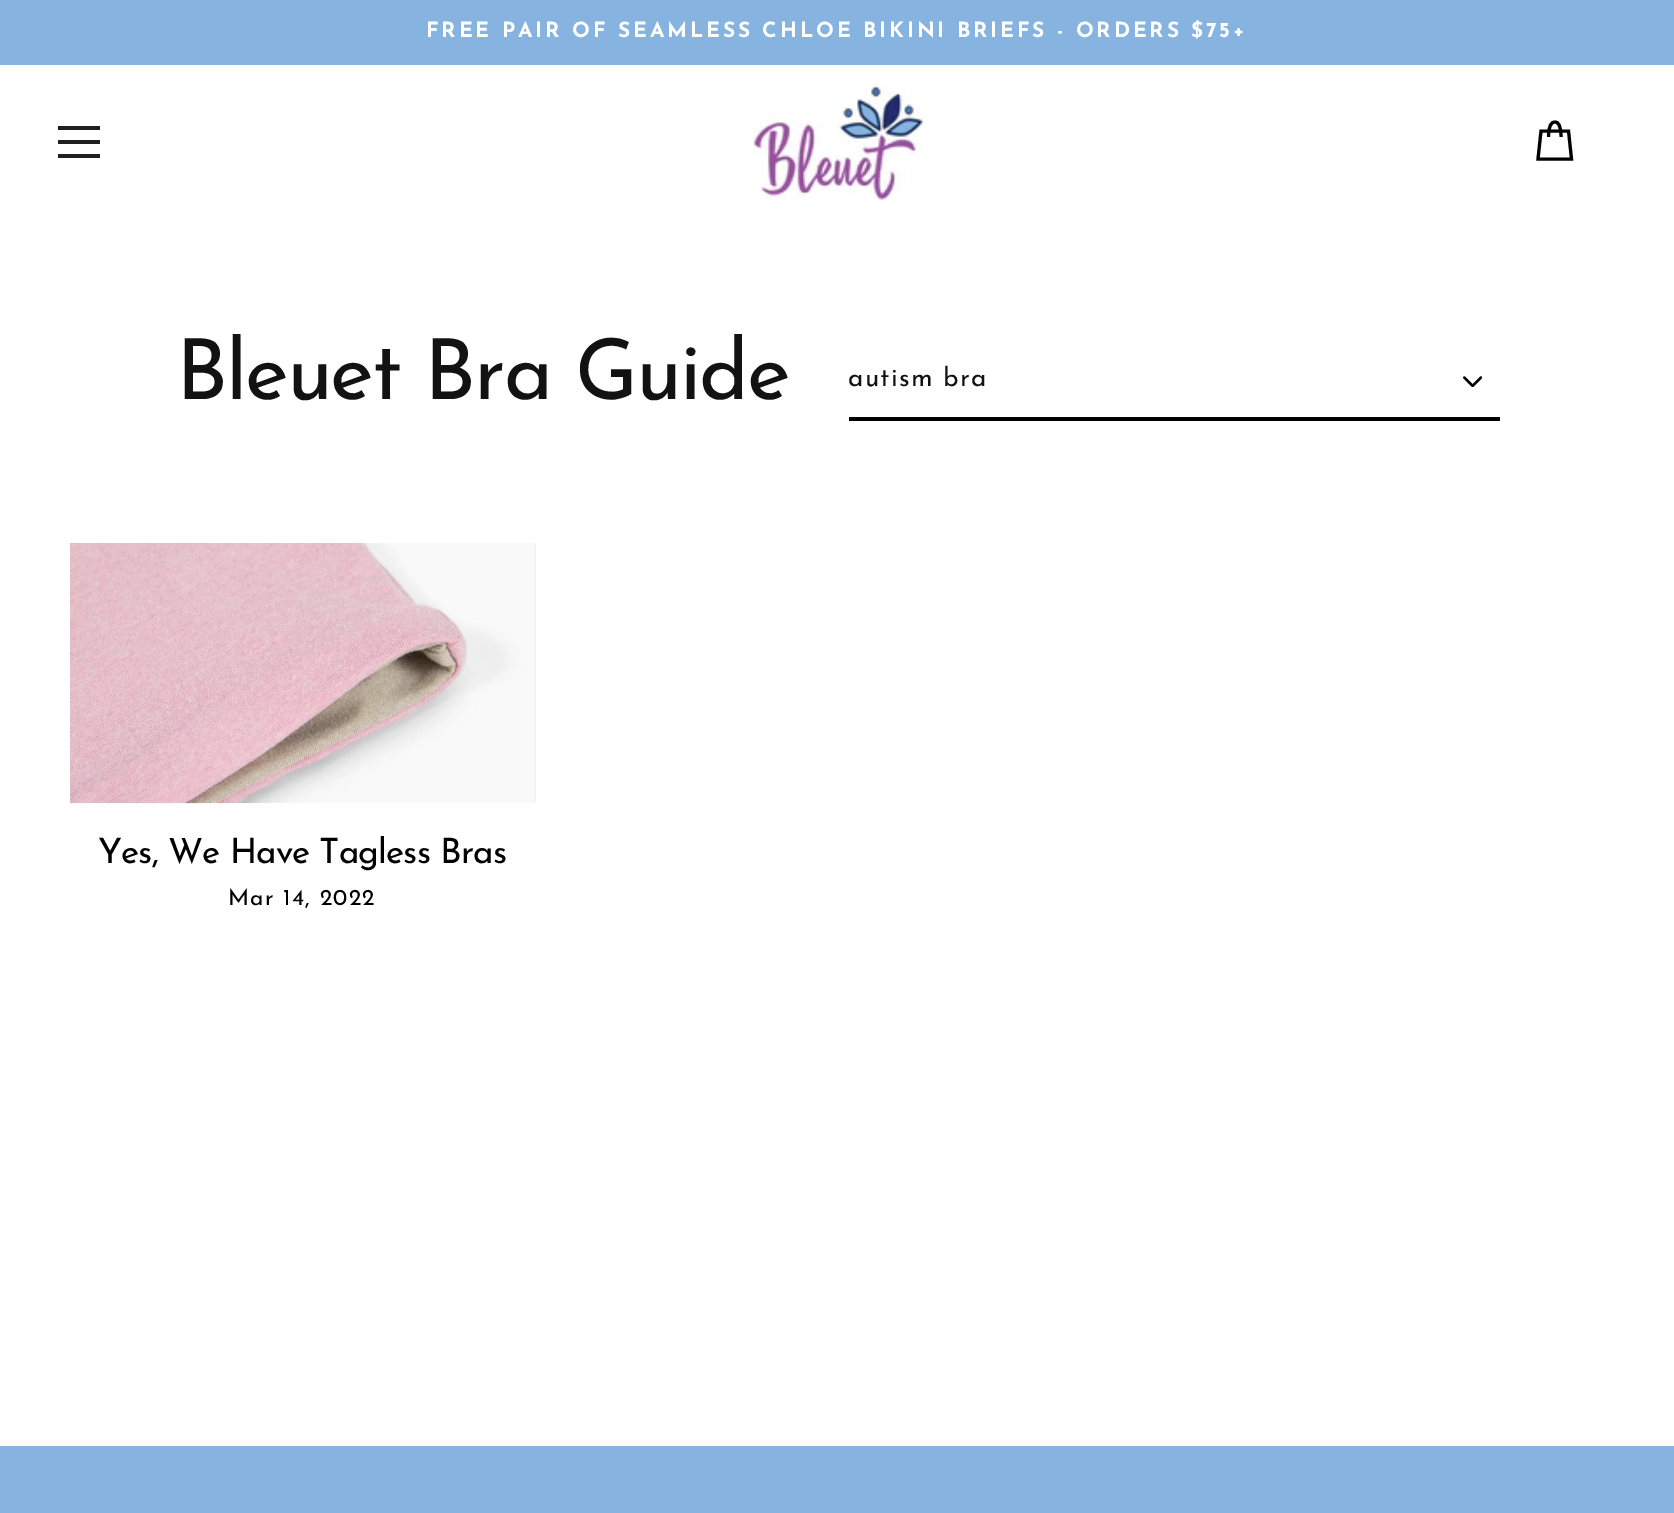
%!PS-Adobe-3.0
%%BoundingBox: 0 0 1674 1513
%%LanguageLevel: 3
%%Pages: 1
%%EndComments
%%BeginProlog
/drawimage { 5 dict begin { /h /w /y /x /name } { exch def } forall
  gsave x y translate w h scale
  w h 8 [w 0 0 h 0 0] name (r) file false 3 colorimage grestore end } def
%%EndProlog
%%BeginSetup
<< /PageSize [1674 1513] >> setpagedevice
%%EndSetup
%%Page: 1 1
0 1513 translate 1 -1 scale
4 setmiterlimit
1 setgray
0 0 1674 1513 rectfill
0.529 0.702 0.878 setrgbcolor
0 0 1674 65 rectfill
0.125 setgray
58 126 42 4 rectfill
58 140 42 4 rectfill
58 154 42 4 rectfill
(images/1.raw) 752 85 175 115 drawimage
0 setgray
3.1 setlinewidth
newpath 1548.5 137 moveto 1548.5 125 1551.5 122 1555 122 curveto 1558 122 1561 125 1561 137 curveto 1541 131 moveto 1568.5 131 lineto 1571.5 159 lineto 1538 159 lineto closepath stroke
(images/2.raw) 1463 376 19 11 drawimage
849 417 651 4 rectfill
gsave newpath 535 543 moveto 536 543 lineto 536 803 lineto 535 803 lineto closepath clip newpath
<< /ShadingType 2 /ColorSpace /DeviceRGB /Coords [76 510 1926 836] /Extend [true true] /Function << /FunctionType 3 /Domain [0 1] /Functions [<< /FunctionType 2 /Domain [0 1] /C0 [0.941 0.941 0.941] /C1 [0.941 0.941 0.941] /N 1 >> << /FunctionType 2 /Domain [0 1] /C0 [0.941 0.941 0.941] /C1 [0.91 0.91 0.91] /N 1 >> << /FunctionType 2 /Domain [0 1] /C0 [0.91 0.91 0.91] /C1 [0.941 0.941 0.941] /N 1 >> << /FunctionType 2 /Domain [0 1] /C0 [0.941 0.941 0.941] /C1 [0.941 0.941 0.941] /N 1 >>] /Bounds [0.4 0.63 0.79] /Encode [0 1 0 1 0 1 0 1] >> >> shfill grestore
(images/3.raw) 70 543 465 261 drawimage
0.529 0.702 0.878 setrgbcolor
0 1446 1674 67 rectfill
/JosefinSans-Bold [21 0 0 -21 0 0] selectfont
1 setgray
426 37 moveto 2.8 0 (FREE PAIR OF SEAMLESS CHLOE BIKINI BRIEFS - ORDERS $75+) ashow
/JosefinSans-Regular [84 0 0 -84 0 0] selectfont
0.071 setgray
176 399 moveto -2.1 0 (Bleuet Bra Guide) ashow
/JosefinSans-Regular [26.25 0 0 -26.25 0 0] selectfont
848 386 moveto 1.25 0 (autism bra) ashow
/JosefinSans-Regular [34.9 0 0 -34.9 0 0] selectfont
0 setgray
98 863 moveto -0.9 0 (Yes, We Have Tagless Bras) ashow
/JosefinSans-Regular [22.75 0 0 -22.75 0 0] selectfont
228 905 moveto 1.25 0 (Mar 14, 2022) ashow
showpage
%%EOF
